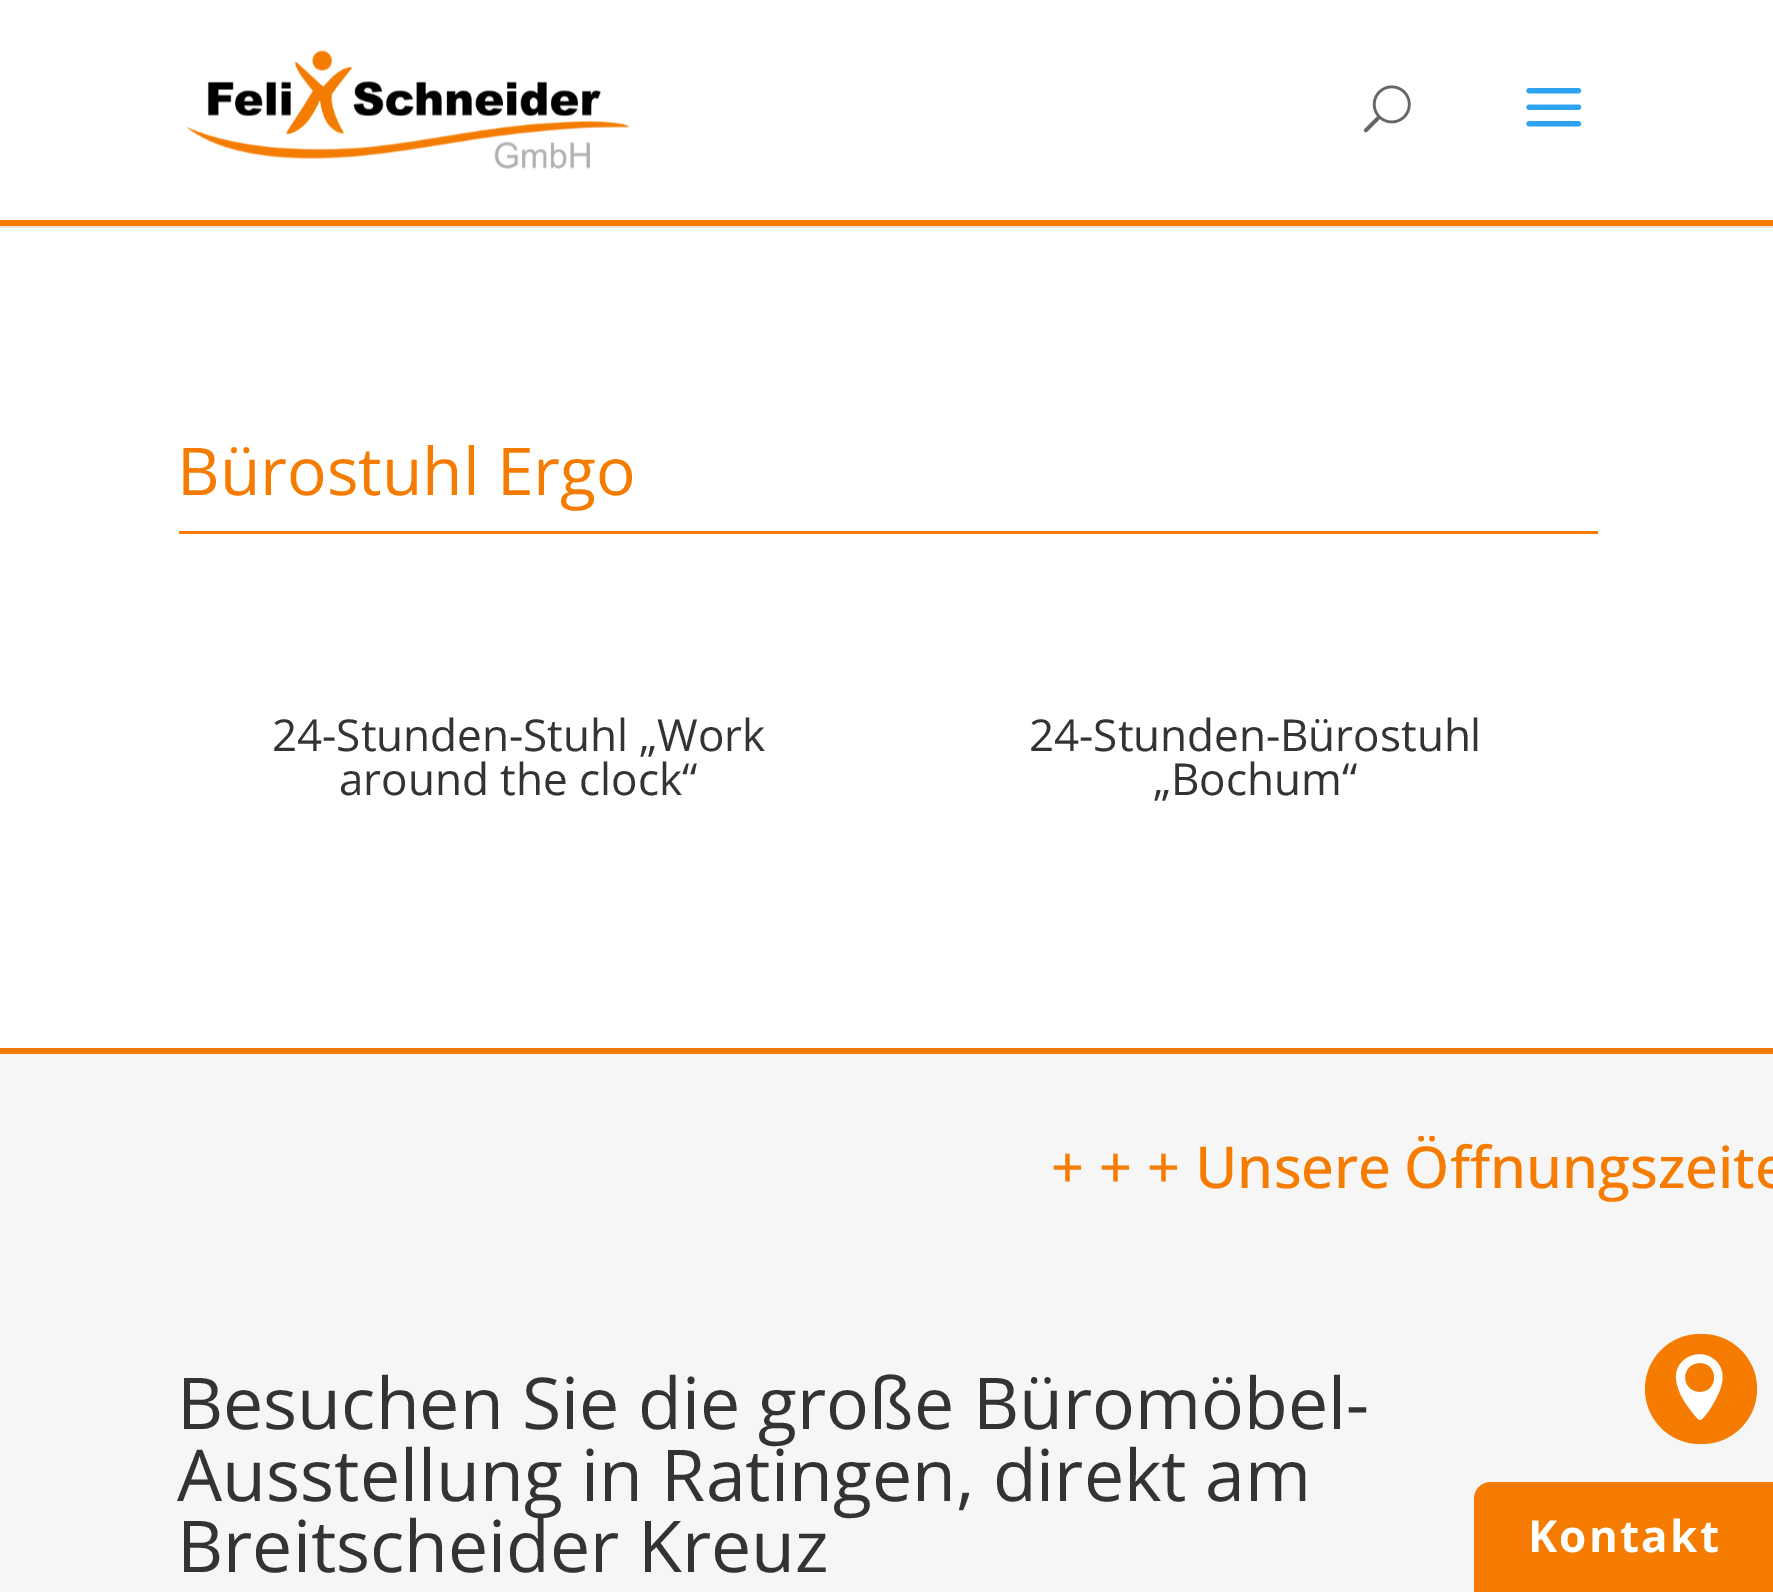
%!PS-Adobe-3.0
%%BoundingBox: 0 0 1773 1592
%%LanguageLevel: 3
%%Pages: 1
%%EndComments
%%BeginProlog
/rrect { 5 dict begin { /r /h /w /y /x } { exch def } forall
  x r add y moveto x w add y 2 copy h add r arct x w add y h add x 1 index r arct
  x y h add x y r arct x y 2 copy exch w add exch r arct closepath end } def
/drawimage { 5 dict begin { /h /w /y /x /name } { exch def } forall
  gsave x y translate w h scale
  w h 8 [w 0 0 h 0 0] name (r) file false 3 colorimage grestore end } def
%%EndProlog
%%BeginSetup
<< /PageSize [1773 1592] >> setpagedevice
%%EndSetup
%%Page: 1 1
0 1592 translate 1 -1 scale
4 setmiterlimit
1 setgray
0 0 1773 1592 rectfill
0.902 setgray
newpath 0 226 moveto 0 228 lineto 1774 228 lineto 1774 3 lineto 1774 226 lineto closepath fill
0.961 0.486 0 setrgbcolor
0 220 1773 6 rectfill
(images/1.raw) 187 50 442 119 drawimage
(images/2.raw) 1363 85 48 48 drawimage
(images/3.raw) 1526 88 56 39 drawimage
179 531 1419 3 rectfill
0.965 setgray
0 1054 1773 538 rectfill
0.961 0.486 0 setrgbcolor
0 1048 1773 6 rectfill
1645 1334 112 110 55 rrect fill
1 setgray
newpath 1698 1419 moveto 1700 1420 lineto 1702 1420 1707 1413 1708 1412 curveto 1717 1398 1730 1377 1717 1362 curveto 1702 1346 1675 1357 1676 1378 curveto 1677 1393 1688 1408 1698 1419 curveto closepath 1700 1363 moveto 1719 1363 1719 1392 1700 1392 curveto 1680 1392 1680 1363 1700 1363 curveto closepath fill
0.961 0.486 0 setrgbcolor
newpath 1491 1482 moveto 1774 1482 lineto 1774 1592 lineto 1474 1592 lineto 1474 1499 lineto 1474 1489.5 1481.5 1482 1491 1482 curveto closepath fill
/OpenSans-Regular [66 0 0 -66 0 0] selectfont
177 495 moveto (Bürostuhl Ergo) show
/OpenSans-Regular [44 0 0 -44 0 0] selectfont
0.2 setgray
272 751 moveto (24-Stunden-Stuhl „Work) show
339 795 moveto (around the clock“) show
1029 751 moveto (24-Stunden-Bürostuhl) show
1153 795 moveto („Bochum“) show
/OpenSans-Medium [57.75 0 0 -57.75 0 0] selectfont
0.961 0.486 0 setrgbcolor
1051 1188 moveto (+ + +) show
gsave
0 1136 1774 66 rectclip
1195 1188 moveto -2 0 32 (Unsere Öffnungszeite) widthshow
grestore
/OpenSans-Regular [71.5 0 0 -71.5 0 0] selectfont
0.2 setgray
177 1429 moveto (Besuchen Sie die große Büromöbel-) show
177 1501 moveto (Ausstellung in Ratingen, direkt am) show
177 1572 moveto (Breitscheider Kreuz) show
/OpenSans-Bold [44 0 0 -44 0 0] selectfont
1 setgray
1528 1552 moveto 2.25 0 (Kontakt) ashow
showpage
%%EOF
